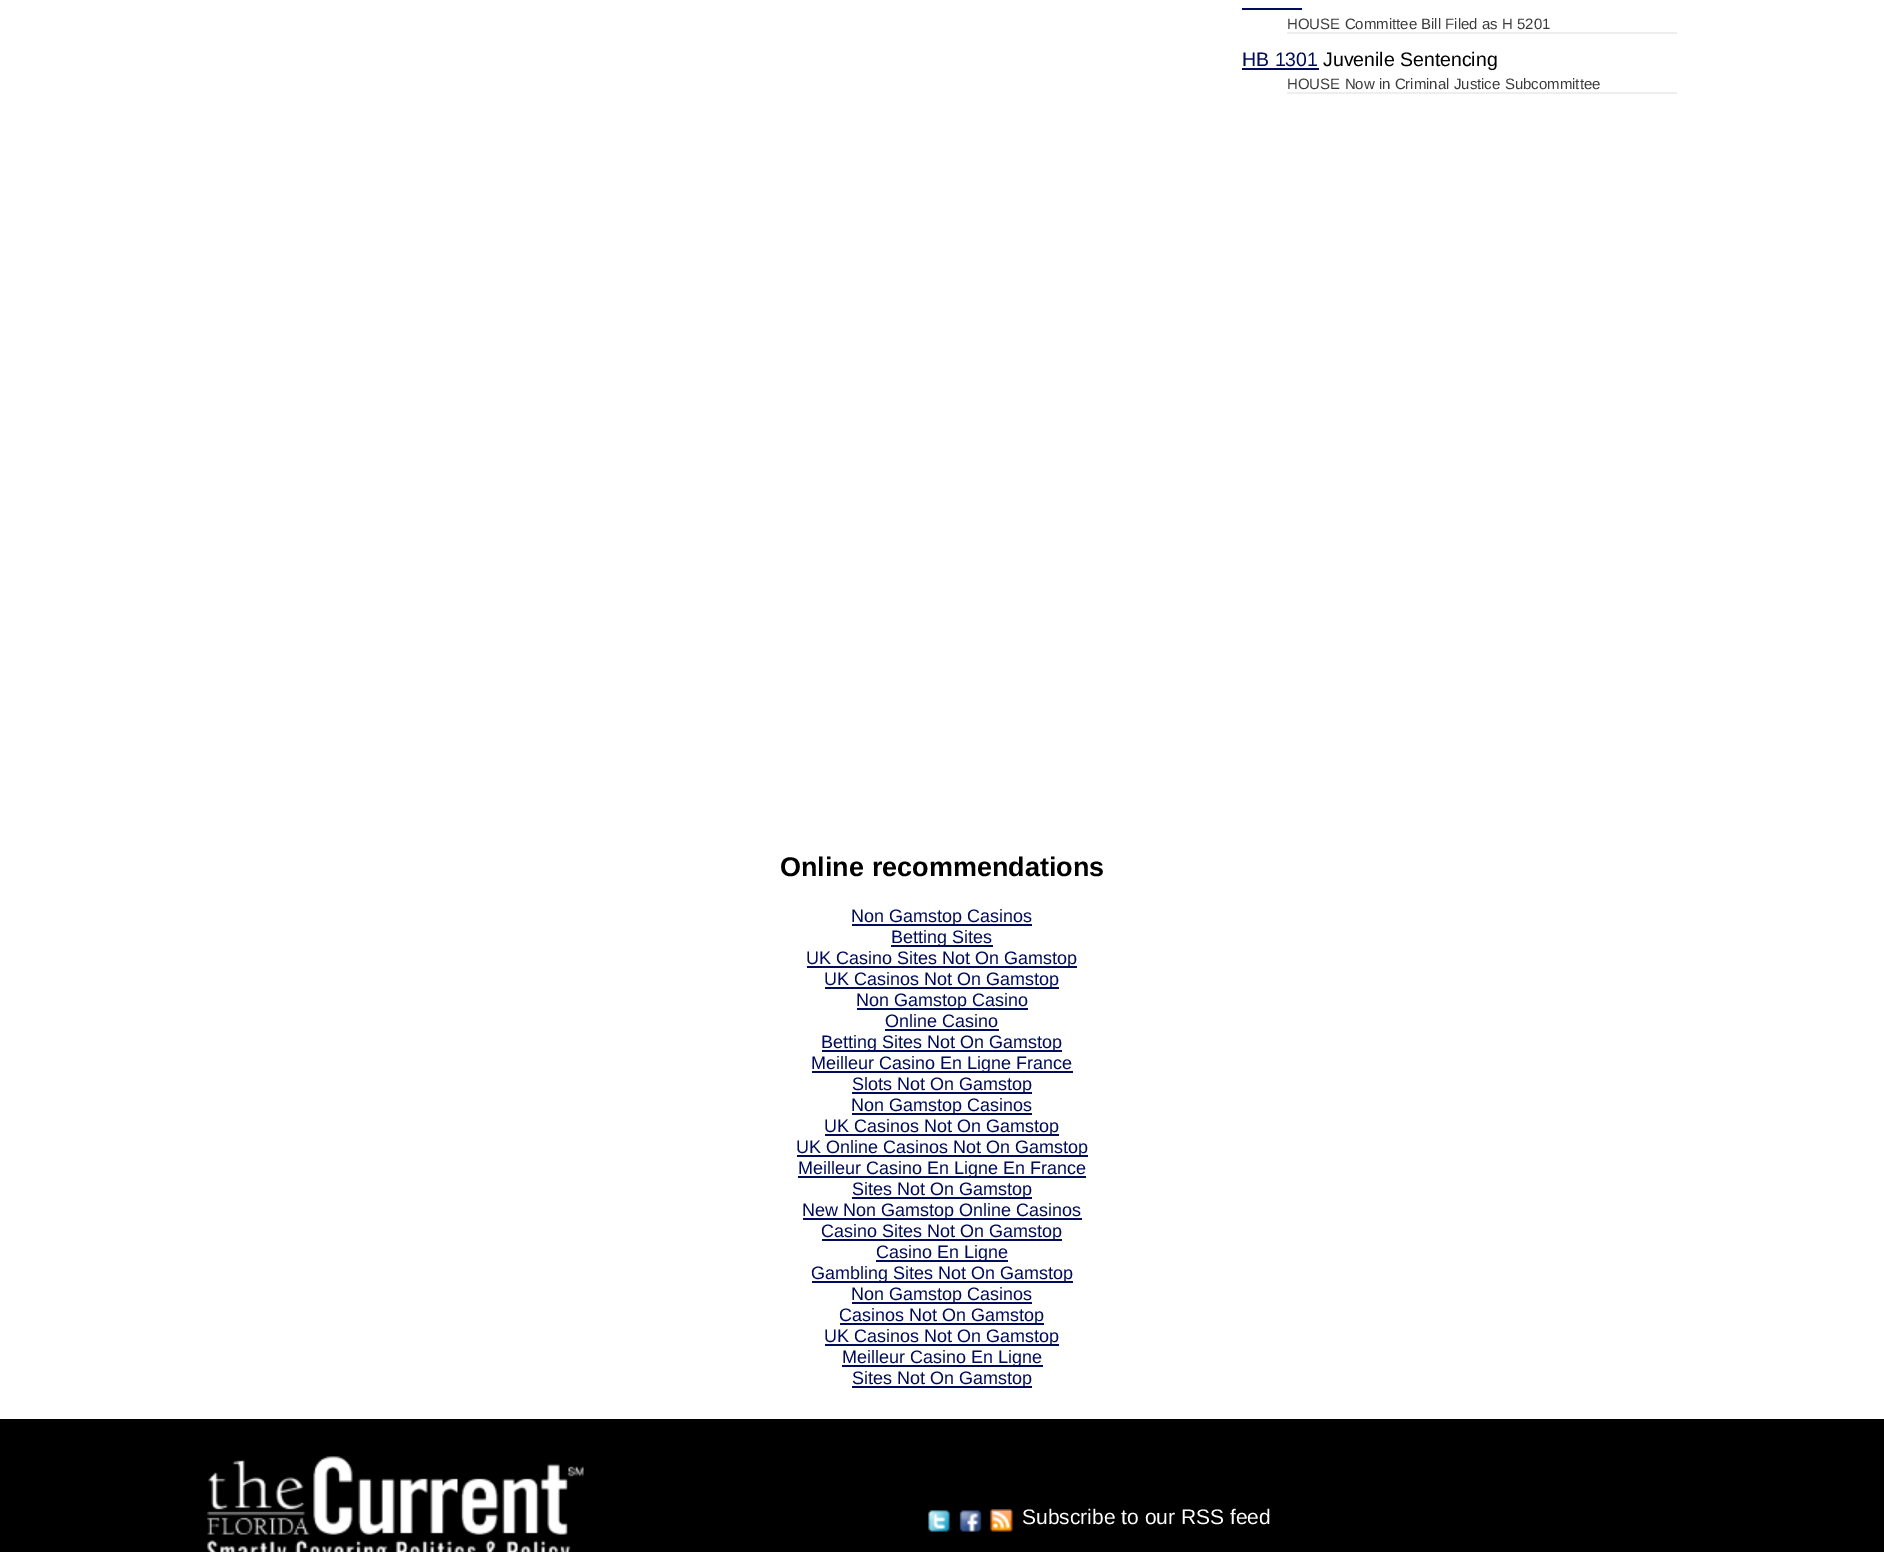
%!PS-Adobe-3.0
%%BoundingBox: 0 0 1884 1552
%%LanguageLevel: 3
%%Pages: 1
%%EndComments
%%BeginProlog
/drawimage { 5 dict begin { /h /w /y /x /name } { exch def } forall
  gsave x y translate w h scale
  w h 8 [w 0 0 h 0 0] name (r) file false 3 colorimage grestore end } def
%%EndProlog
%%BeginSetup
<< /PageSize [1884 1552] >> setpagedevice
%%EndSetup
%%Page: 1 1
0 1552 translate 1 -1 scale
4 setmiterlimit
1 setgray
0 0 1884 1552 rectfill
0 0.043 0.353 setrgbcolor
1242 8 60 2 rectfill
0.933 setgray
1287 32 390 2 rectfill
0 0.043 0.353 setrgbcolor
1242 68 77 2 rectfill
0.933 setgray
1287 92 390 2 rectfill
0 0.043 0.353 setrgbcolor
852 924 180 2 rectfill
891 945 102 2 rectfill
807 966 270 2 rectfill
825 987 234 2 rectfill
857 1008 171 2 rectfill
885 1029 114 2 rectfill
822 1050 240 2 rectfill
812 1071 261 2 rectfill
852 1092 180 2 rectfill
852 1113 180 2 rectfill
825 1134 234 2 rectfill
797 1155 291 2 rectfill
798 1176 288 2 rectfill
852 1197 180 2 rectfill
803 1218 279 2 rectfill
822 1239 240 2 rectfill
876 1260 132 2 rectfill
812 1281 261 2 rectfill
852 1302 180 2 rectfill
840 1323 204 2 rectfill
825 1344 234 2 rectfill
842 1365 201 2 rectfill
852 1386 180 2 rectfill
0 setgray
0 1419 1884 133 rectfill
(images/1.raw) 207 1456 377 96 drawimage
(images/2.raw) 928 1510 22 22 drawimage
(images/3.raw) 959 1510 23 22 drawimage
(images/4.raw) 990 1509 23 23 drawimage
/LiberationSans-Regular [15 0 0 -15 0 0] selectfont
0.235 setgray
1287 29 moveto (HOUSE Committee Bill Filed as H 5201) show
/LiberationSans-Regular [19.5 0 0 -19.5 0 0] selectfont
0 0.043 0.353 setrgbcolor
1242 66 moveto (HB 1301) show
0 setgray
1323 66 moveto (Juvenile Sentencing) show
/LiberationSans-Regular [15 0 0 -15 0 0] selectfont
0.235 setgray
1287 89 moveto (HOUSE Now in Criminal Justice Subcommittee) show
/LiberationSans-Bold [27 0 0 -27 0 0] selectfont
0 setgray
780 876 moveto (Online recommendations) show
/LiberationSans-Regular [18 0 0 -18 0 0] selectfont
0 0.043 0.353 setrgbcolor
851 922 moveto (Non Gamstop Casinos) show
891 943 moveto (Betting Sites) show
806 964 moveto (UK Casino Sites Not On Gamstop) show
824 985 moveto (UK Casinos Not On Gamstop) show
856 1006 moveto (Non Gamstop Casino) show
885 1027 moveto (Online Casino) show
821 1048 moveto (Betting Sites Not On Gamstop) show
811 1069 moveto (Meilleur Casino En Ligne France) show
852 1090 moveto (Slots Not On Gamstop) show
851 1111 moveto (Non Gamstop Casinos) show
824 1132 moveto (UK Casinos Not On Gamstop) show
796 1153 moveto (UK Online Casinos Not On Gamstop) show
798 1174 moveto (Meilleur Casino En Ligne En France) show
852 1195 moveto (Sites Not On Gamstop) show
802 1216 moveto (New Non Gamstop Online Casinos) show
821 1237 moveto (Casino Sites Not On Gamstop) show
876 1258 moveto (Casino En Ligne) show
811 1279 moveto (Gambling Sites Not On Gamstop) show
851 1300 moveto (Non Gamstop Casinos) show
839 1321 moveto (Casinos Not On Gamstop) show
824 1342 moveto (UK Casinos Not On Gamstop) show
842 1363 moveto (Meilleur Casino En Ligne) show
852 1384 moveto (Sites Not On Gamstop) show
/LiberationSans-Regular [21 0 0 -21 0 0] selectfont
1 setgray
1022 1524 moveto (Subscribe to our RSS feed) show
showpage
%%EOF
